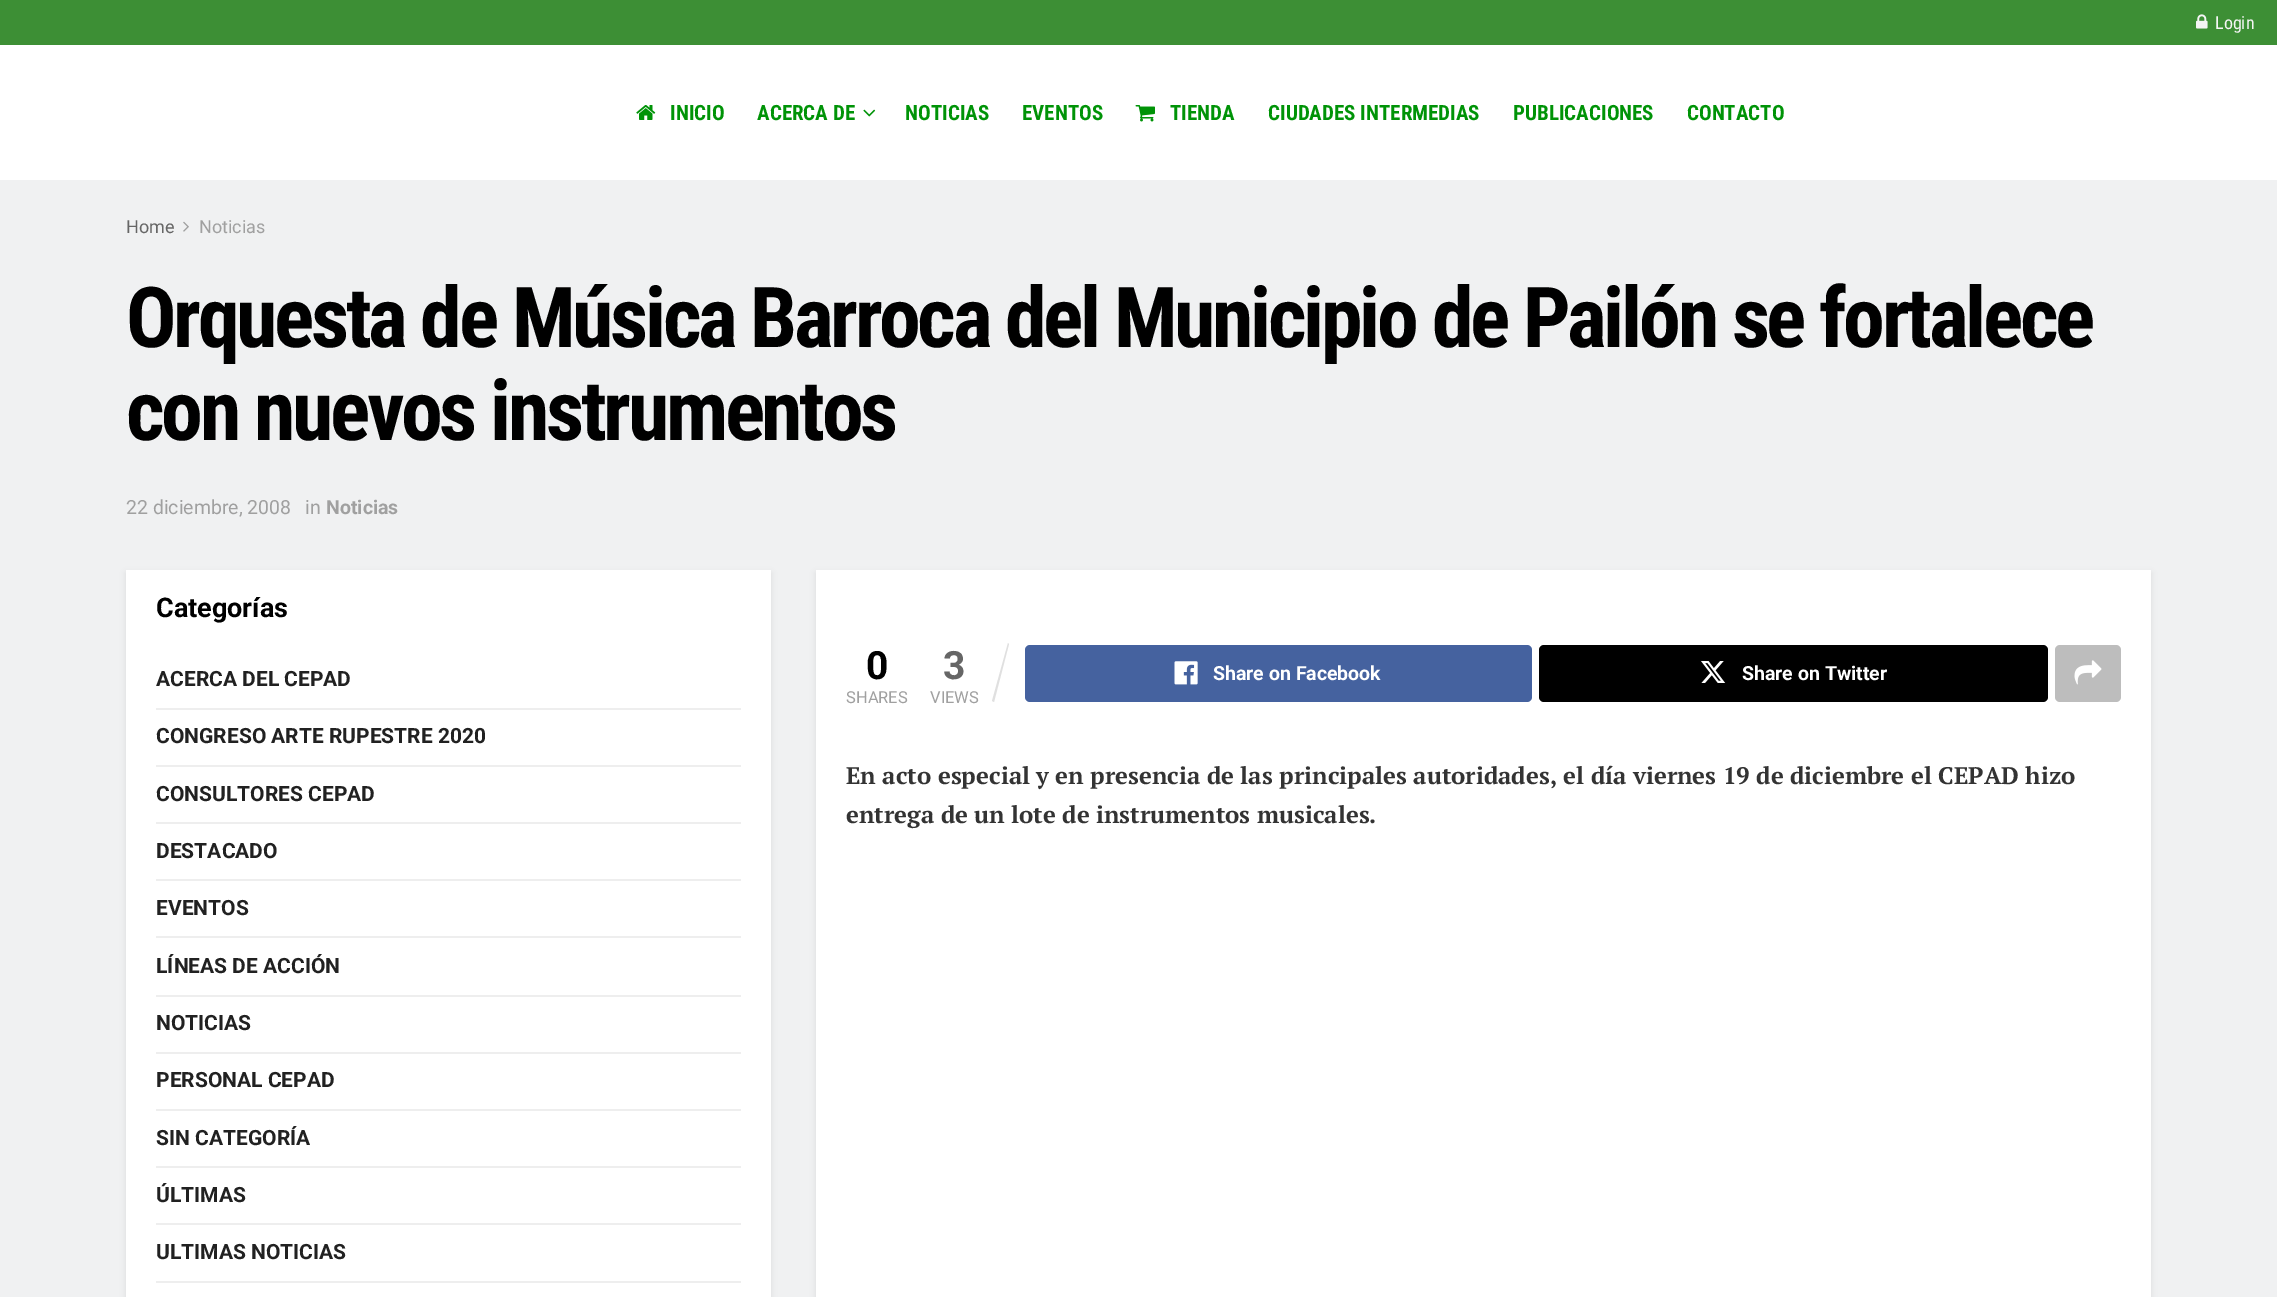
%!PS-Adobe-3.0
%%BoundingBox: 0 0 2277 1297
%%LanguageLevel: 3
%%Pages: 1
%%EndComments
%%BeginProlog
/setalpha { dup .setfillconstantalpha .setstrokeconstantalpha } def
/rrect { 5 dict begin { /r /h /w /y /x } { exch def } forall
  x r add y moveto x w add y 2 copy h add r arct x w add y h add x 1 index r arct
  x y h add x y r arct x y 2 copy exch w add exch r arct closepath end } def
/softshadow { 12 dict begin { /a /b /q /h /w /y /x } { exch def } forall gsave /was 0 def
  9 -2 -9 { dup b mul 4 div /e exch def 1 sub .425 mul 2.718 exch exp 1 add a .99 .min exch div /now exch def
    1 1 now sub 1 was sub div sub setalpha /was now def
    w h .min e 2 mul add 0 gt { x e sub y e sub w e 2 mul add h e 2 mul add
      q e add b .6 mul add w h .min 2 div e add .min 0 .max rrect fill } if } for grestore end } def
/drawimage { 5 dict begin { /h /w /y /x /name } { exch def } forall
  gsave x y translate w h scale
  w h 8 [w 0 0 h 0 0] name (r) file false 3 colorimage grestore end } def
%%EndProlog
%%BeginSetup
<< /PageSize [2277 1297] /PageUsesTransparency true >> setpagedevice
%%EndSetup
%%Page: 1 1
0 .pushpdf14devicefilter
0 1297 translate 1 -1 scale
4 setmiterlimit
1 setgray
0 0 2277 1297 rectfill
0.239 0.561 0.208 setrgbcolor
0 0 2277 45 rectfill
(images/1.raw) 2196 14 12 15 drawimage
(images/2.raw) 636 105 20 15 drawimage
(images/3.raw) 863 109 13 8 drawimage
(images/4.raw) 1135 105 20 17 drawimage
0.941 0.945 0.949 setrgbcolor
0 180 2277 1117 rectfill
(images/5.raw) 183 221 6 11 drawimage
0 setgray
126 573 645 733 0 3 0.08 softshadow
1 setgray
126 570 645 727 rectfill
0.933 setgray
156 708 585 2 rectfill
156 765 585 2 rectfill
156 822 585 2 rectfill
156 879 585 2 rectfill
156 936 585 2 rectfill
156 995 585 2 rectfill
156 1052 585 2 rectfill
156 1109 585 2 rectfill
156 1166 585 2 rectfill
156 1223 585 2 rectfill
156 1281 585 2 rectfill
0 setgray
816 573 1335 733 0 3 0.08 softshadow
1 setgray
816 570 1335 727 rectfill
0.878 setgray
newpath 1008 643 moveto 1009 644 lineto 994 702 lineto 992 701 lineto closepath fill
0.271 0.384 0.624 setrgbcolor
1025 645 507 57 5 rrect fill
(images/6.raw) 1174 661 24 24 drawimage
0 setgray
1539 645 509 57 5 rrect fill
(images/7.raw) 1701 661 25 22 drawimage
0.741 setgray
2055 645 66 57 5 rrect fill
(images/8.raw) 2074 660 28 25 drawimage
/RobotoCondensed-Regular [18 0 0 -18 0 0] selectfont
0.961 setgray
2215 29 moveto (Login) show
/RobotoCondensed-Bold [21 0 0 -21 0 0] selectfont
0 0.576 0.027 setrgbcolor
670 120 moveto (INICIO) show
757 120 moveto (ACERCA DE) show
905 120 moveto (NOTICIAS) show
1022 120 moveto (EVENTOS) show
1170 120 moveto (TIENDA) show
1268 120 moveto (CIUDADES INTERMEDIAS) show
1513 120 moveto (PUBLICACIONES) show
1687 120 moveto (CONTACTO) show
/Roboto-Regular [18 0 0 -18 0 0] selectfont
0.4 setgray
126 233 moveto (Home) show
0.627 setgray
199 233 moveto (Noticias) show
/RobotoCondensed-Bold [84 0 0 -84 0 0] selectfont
0 setgray
126 347 moveto -3.35 0 (Orquesta de Música Barroca del Municipio de Pailón se fortalece) ashow
126 440 moveto -3.35 0 (con nuevos instrumentos) ashow
/Roboto-Regular [19.5 0 0 -19.5 0 0] selectfont
0.627 setgray
126 514 moveto (22 diciembre, 2008) show
305 514 moveto (in) show
/Roboto-Bold [19.5 0 0 -19.5 0 0] selectfont
326 514 moveto (Noticias) show
/Roboto-Bold [27 0 0 -27 0 0] selectfont
0 setgray
156 617 moveto (Categorías) show
/Roboto-Bold [21 0 0 -21 0 0] selectfont
0.129 setgray
156 686 moveto (ACERCA DEL CEPAD) show
156 743 moveto (CONGRESO ARTE RUPESTRE 2020) show
156 801 moveto (CONSULTORES CEPAD) show
156 858 moveto (DESTACADO) show
156 915 moveto (EVENTOS) show
156 973 moveto (LÍNEAS DE ACCIÓN) show
156 1030 moveto (NOTICIAS) show
156 1087 moveto (PERSONAL CEPAD) show
156 1145 moveto (SIN CATEGORÍA) show
156 1202 moveto (ÚLTIMAS) show
156 1259 moveto (ULTIMAS NOTICIAS) show
/Roboto-Bold [39 0 0 -39 0 0] selectfont
0 setgray
866 679 moveto (0) show
/Roboto-Regular [16.5 0 0 -16.5 0 0] selectfont
0.627 setgray
846 703 moveto (SHARES) show
/Roboto-Bold [39 0 0 -39 0 0] selectfont
0.4 setgray
943 679 moveto (3) show
/Roboto-Regular [16.5 0 0 -16.5 0 0] selectfont
0.627 setgray
930 703 moveto (VIEWS) show
/Roboto-Bold [19.5 0 0 -19.5 0 0] selectfont
1 setgray
1213 680 moveto (Share on Facebook) show
1742 680 moveto (Share on Twitter) show
/PTSerif-Bold [24 0 0 -24 0 0] selectfont
0.2 setgray
846 784 moveto (En acto especial y en presencia de las principales autoridades, el día viernes 19 de diciembre el CEPAD hizo) show
846 823 moveto (entrega de un lote de instrumentos musicales.) show
.poppdf14devicefilter showpage
%%EOF
